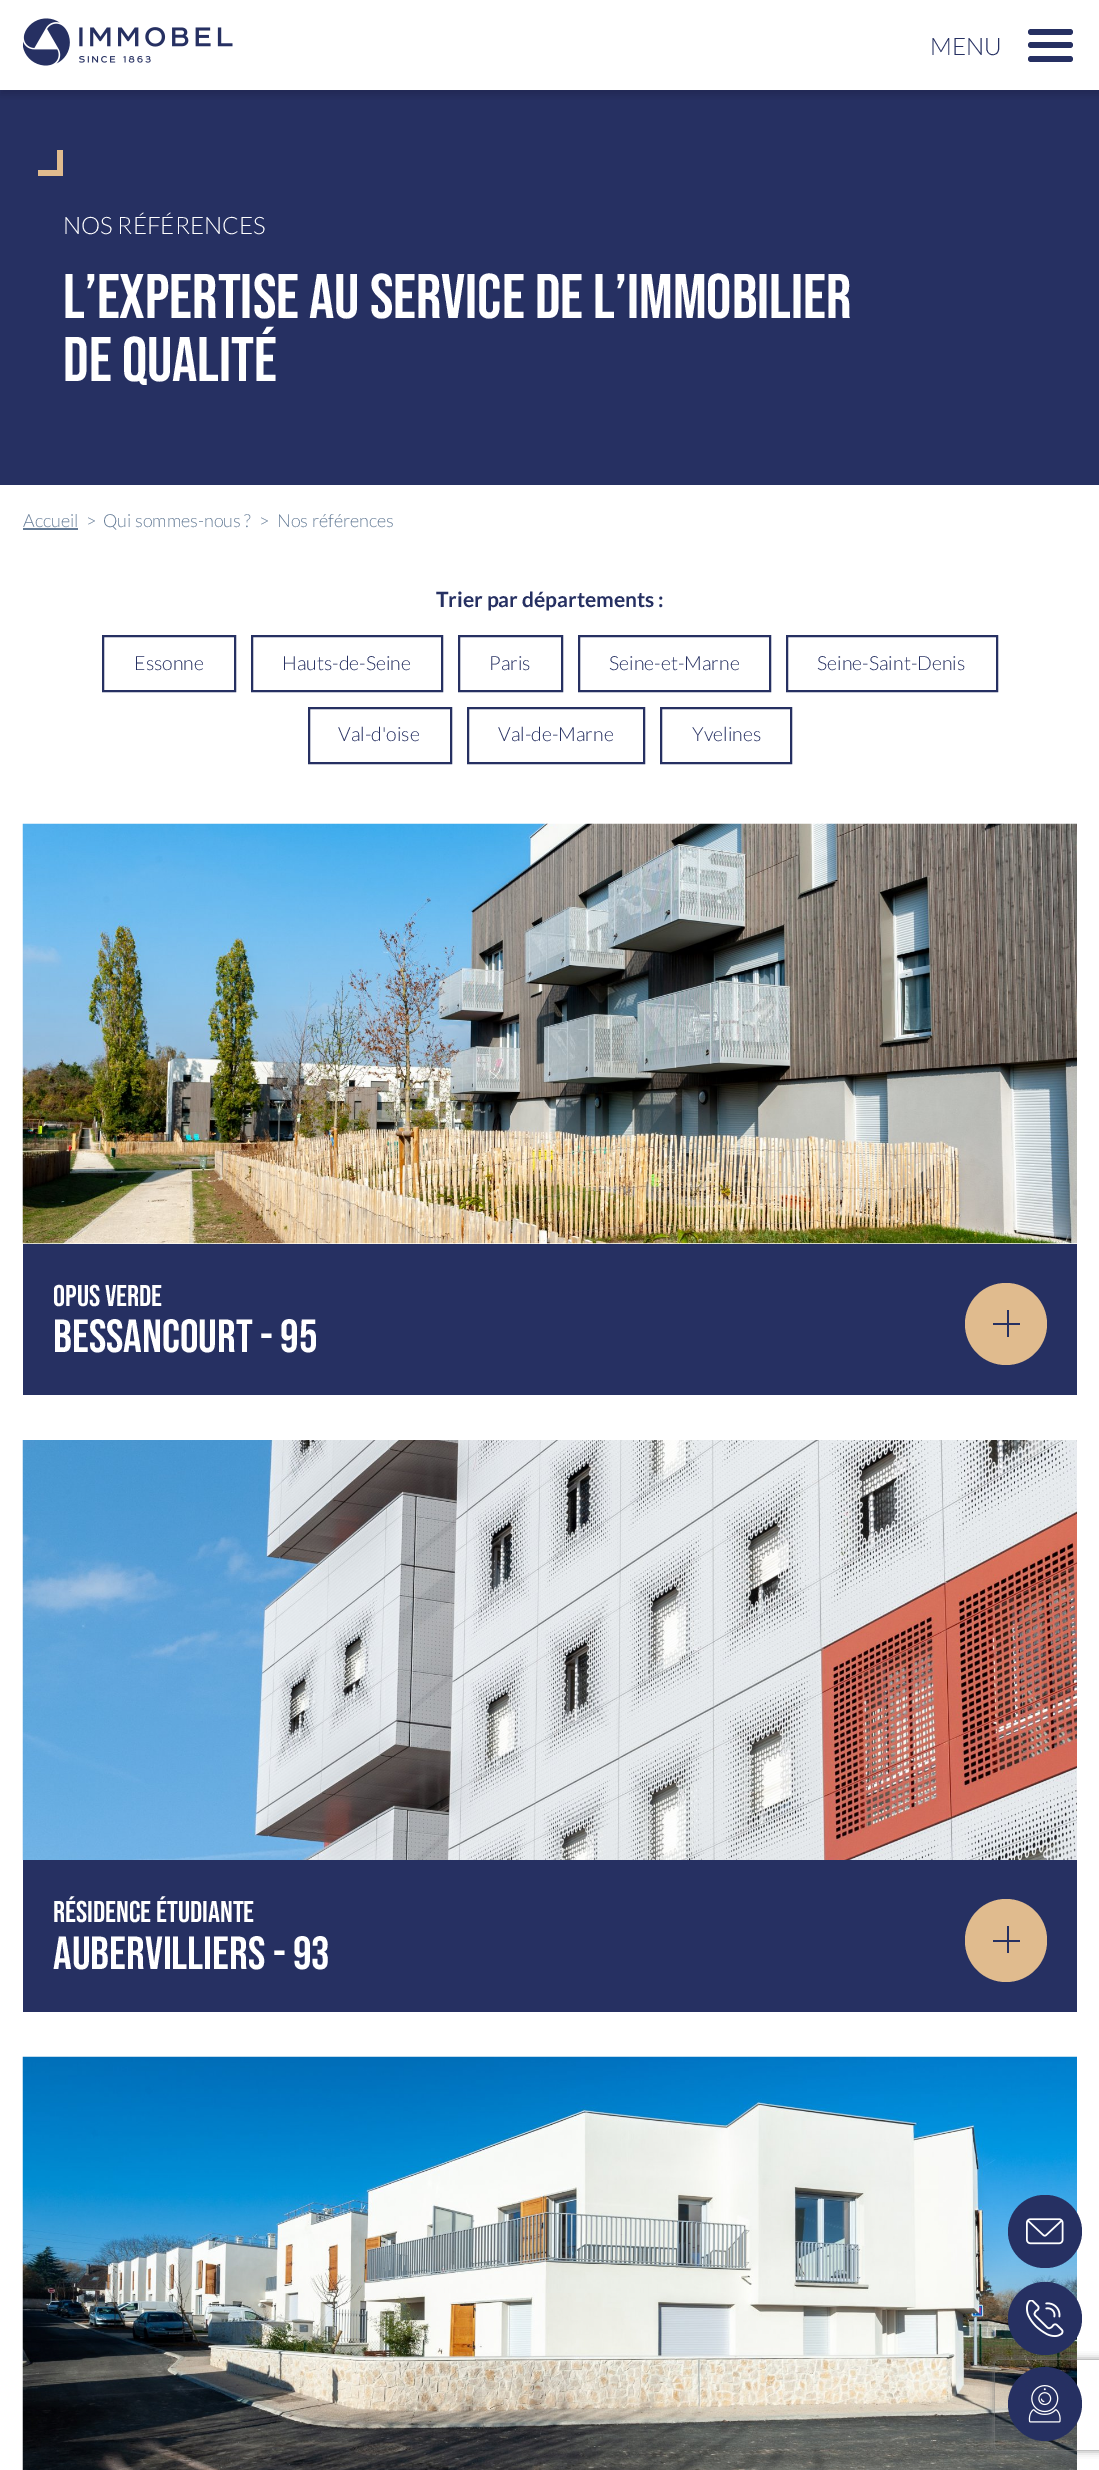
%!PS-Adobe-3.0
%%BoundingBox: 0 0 1099 2470
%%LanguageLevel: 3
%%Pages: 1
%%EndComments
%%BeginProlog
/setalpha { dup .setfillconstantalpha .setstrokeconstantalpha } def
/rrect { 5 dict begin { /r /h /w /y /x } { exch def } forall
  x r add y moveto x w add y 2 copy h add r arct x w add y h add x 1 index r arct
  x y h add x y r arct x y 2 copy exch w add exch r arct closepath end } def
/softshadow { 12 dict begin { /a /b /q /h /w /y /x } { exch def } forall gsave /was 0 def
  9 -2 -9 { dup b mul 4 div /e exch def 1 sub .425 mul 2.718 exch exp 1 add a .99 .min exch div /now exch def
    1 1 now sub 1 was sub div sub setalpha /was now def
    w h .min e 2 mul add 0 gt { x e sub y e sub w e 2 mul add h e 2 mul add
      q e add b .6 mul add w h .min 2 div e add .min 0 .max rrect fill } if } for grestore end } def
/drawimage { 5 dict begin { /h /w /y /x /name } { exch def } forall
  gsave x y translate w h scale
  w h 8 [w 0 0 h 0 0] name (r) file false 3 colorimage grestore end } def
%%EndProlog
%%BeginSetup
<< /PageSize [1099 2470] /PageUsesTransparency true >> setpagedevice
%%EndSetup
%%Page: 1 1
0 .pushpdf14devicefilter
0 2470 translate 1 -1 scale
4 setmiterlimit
1 setgray
0 0 1099 2470 rectfill
0.149 0.188 0.384 setrgbcolor
0 90 1099 395 rectfill
gsave
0 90 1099 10 rectclip
0 setgray
0 5 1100 90 0 4.5 0.16 softshadow
grestore
(images/1.raw) 23 18 210 48 drawimage
1028 29 45 6 3 rrect fill
1028 42 45 6 3 rrect fill
1028 56 45 6 3 rrect fill
0.878 0.733 0.557 setrgbcolor
57 150 6 26 rectfill
38 170 25 6 rectfill
0.392 0.482 0.588 setrgbcolor
23 528 55 2 rectfill
0.149 0.188 0.384 setrgbcolor
2 setlinewidth
103 636 132 55 rectstroke
252 636 190 55 rectstroke
459 636 103 55 rectstroke
579 636 191 55 rectstroke
787 636 210 55 rectstroke
309 708 142 55 rectstroke
468 708 176 55 rectstroke
661 708 130 55 rectstroke
(images/2.raw) 22 823 1055 421 drawimage
23 1244 1054 151 rectfill
0.878 0.733 0.557 setrgbcolor
newpath 1006 1324 41 0 360 arc closepath fill
0.149 0.188 0.384 setrgbcolor
1007 1310 2 27 rectfill
993 1323 27 2 rectfill
(images/3.raw) 22 1440 1055 420 drawimage
23 1860 1054 152 rectfill
0.878 0.733 0.557 setrgbcolor
965 1899 82 83 41 rrect fill
0.149 0.188 0.384 setrgbcolor
1007 1926 2 27 rectfill
993 1940 27 2 rectfill
(images/4.raw) 22 2056 1055 414 drawimage
1008 2195 74 73 36.5 rrect fill
(images/5.raw) 1026 2218 38 27 drawimage
gsave
newpath 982 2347 moveto 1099 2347 lineto 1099 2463 lineto 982 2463 lineto closepath 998 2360 moveto 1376 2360 lineto 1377.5 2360 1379 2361.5 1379 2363 curveto 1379 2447 lineto 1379 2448.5 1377.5 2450 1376 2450 curveto 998 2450 lineto 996.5 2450 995 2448.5 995 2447 curveto 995 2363 lineto 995 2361.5 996.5 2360 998 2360 curveto closepath eoclip newpath
0.502 setgray
995 2360 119 90 3 4 1 softshadow
grestore
1008 2282 74 73 36.5 rrect fill
(images/6.raw) 1026 2300 38 37 drawimage
newpath 1045 2404 37 0 360 arc closepath fill
(images/7.raw) 1028 2385 33 38 drawimage
/Lato-Light [24 0 0 -24 0 0] selectfont
930 55 moveto (MENU) show
1 setgray
63 234 moveto (NOS RÉFÉRENCES) show
/BebasNeue-Regular [63 0 0 -63 0 0] selectfont
63 318 moveto (L’expertise au service de l’immobilier) show
63 381 moveto (de qualité) show
/Lato-Light [18 0 0 -18 0 0] selectfont
0.392 0.482 0.588 setrgbcolor
23 527 moveto (Accueil) show
86 527 moveto (>) show
103 527 moveto (Qui sommes-nous ?) show
259 527 moveto (>) show
277 527 moveto (Nos références) show
/Lato-Bold [21 0 0 -21 0 0] selectfont
0.149 0.188 0.384 setrgbcolor
436 607 moveto (Trier par départements :) show
/Lato-Light [19.5 0 0 -19.5 0 0] selectfont
134 670 moveto (Essonne) show
282 670 moveto (Hauts-de-Seine) show
489 670 moveto (Paris) show
609 670 moveto (Seine-et-Marne) show
817 670 moveto (Seine-Saint-Denis) show
338 741 moveto (Val-d'oise) show
498 741 moveto (Val-de-Marne) show
692 741 moveto (Yvelines) show
/BebasNeue-Regular [30 0 0 -30 0 0] selectfont
1 setgray
53 1306 moveto (OPUS VERDE) show
/BebasNeue-Regular [46.5 0 0 -46.5 0 0] selectfont
53 1352 moveto (BESSANCOURT - 95) show
/BebasNeue-Regular [30 0 0 -30 0 0] selectfont
53 1922 moveto (RÉSIDENCE ÉTUDIANTE) show
/BebasNeue-Regular [46.5 0 0 -46.5 0 0] selectfont
53 1969 moveto (AUBERVILLIERS - 93) show
.poppdf14devicefilter showpage
%%EOF
